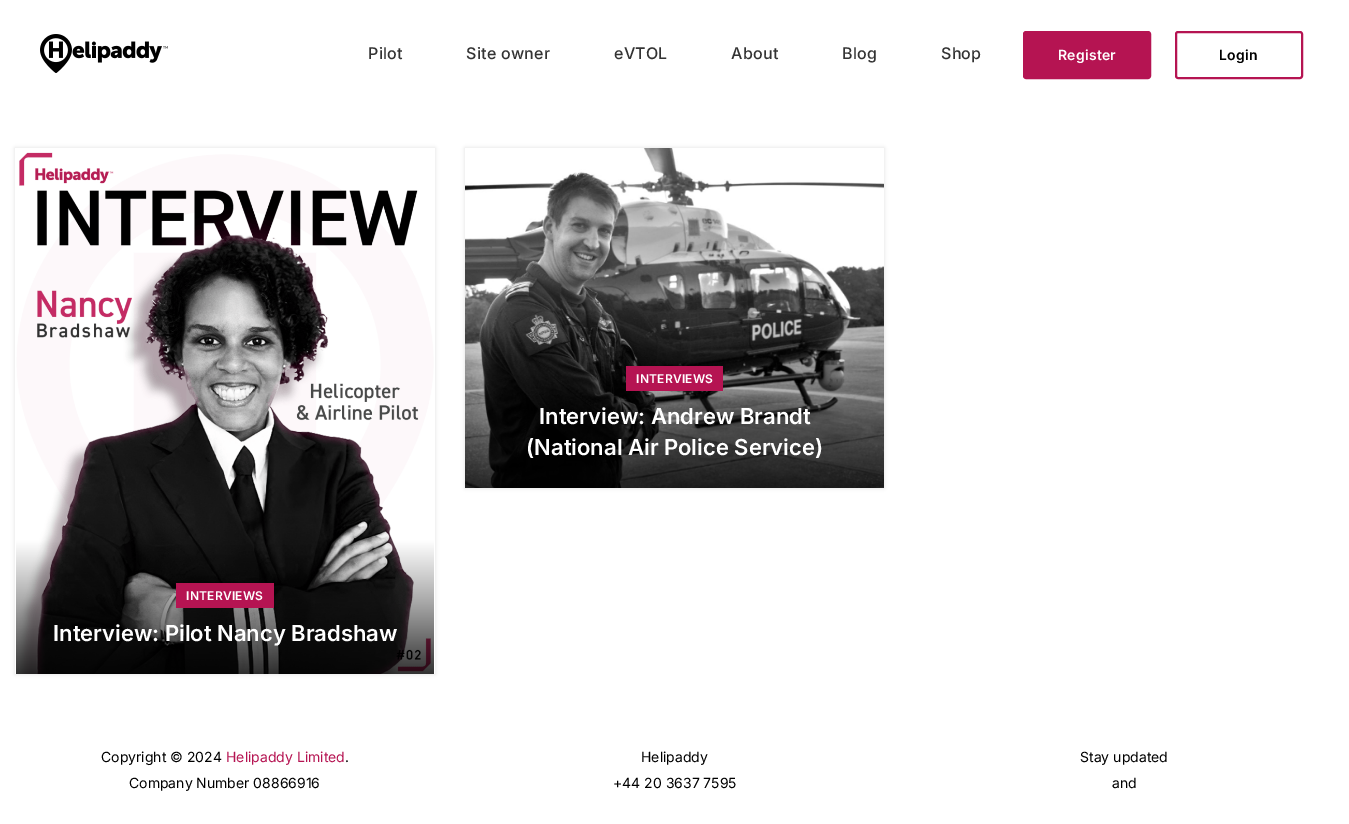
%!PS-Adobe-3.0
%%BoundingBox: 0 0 1349 824
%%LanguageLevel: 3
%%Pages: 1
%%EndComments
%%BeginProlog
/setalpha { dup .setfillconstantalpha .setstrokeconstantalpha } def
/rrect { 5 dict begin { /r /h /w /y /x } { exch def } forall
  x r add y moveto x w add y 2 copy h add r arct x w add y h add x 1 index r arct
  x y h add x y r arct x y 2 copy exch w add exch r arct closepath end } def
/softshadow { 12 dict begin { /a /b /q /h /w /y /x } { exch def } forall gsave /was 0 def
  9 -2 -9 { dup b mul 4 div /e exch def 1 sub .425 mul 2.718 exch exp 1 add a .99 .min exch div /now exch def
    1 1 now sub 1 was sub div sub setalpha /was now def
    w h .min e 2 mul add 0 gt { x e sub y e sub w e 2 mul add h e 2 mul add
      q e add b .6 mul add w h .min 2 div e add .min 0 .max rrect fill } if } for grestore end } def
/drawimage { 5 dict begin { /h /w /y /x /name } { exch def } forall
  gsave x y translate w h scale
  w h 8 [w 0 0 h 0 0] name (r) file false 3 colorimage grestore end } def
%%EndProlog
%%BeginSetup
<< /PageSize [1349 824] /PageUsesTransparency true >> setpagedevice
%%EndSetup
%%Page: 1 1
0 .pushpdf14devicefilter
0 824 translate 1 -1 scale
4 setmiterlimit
1 setgray
0 0 1349 824 rectfill
(images/1.raw) 40 34 128 39 drawimage
0.71 0.078 0.322 setrgbcolor
1024 32 126 46 2 rrect gsave fill grestore
2 setlinewidth
stroke
1176 32 126 46 2 rrect stroke
0 setgray
465 148 419 340 0 2 0.12 softshadow
(images/2.raw) 465 148 419 340 drawimage
0.71 0.078 0.322 setrgbcolor
626 366 97 25 rectfill
gsave
newpath 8 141 moveto 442 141 lineto 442 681 lineto 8 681 lineto closepath 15 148 moveto 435 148 lineto 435 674 lineto 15 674 lineto closepath eoclip newpath
0 setgray
15 148 420 526 0 2 0.12 softshadow
grestore
(images/3.raw) 16 152 418 522 drawimage
176 583 98 25 rectfill
/Inter-Medium [16 0 0 -16 0 0] selectfont
0.2 setgray
368 59 moveto 0.25 0 (Pilot) ashow
466 59 moveto 0.25 0 (Site owner) ashow
614 59 moveto 0.25 0 (eVTOL) ashow
731 59 moveto 0.25 0 (About) ashow
842 59 moveto 0.25 0 (Blog) ashow
941 59 moveto 0.25 0 (Shop) ashow
/Inter-SemiBold [14 0 0 -14 0 0] selectfont
1 setgray
1058 60 moveto 0.25 0 (Register) ashow
0 setgray
1219 60 moveto 0.25 0 (Login) ashow
/Inter-SemiBold [12 0 0 -12 0 0] selectfont
1 setgray
636 383 moveto 0.25 0 (INTERVIEWS) ashow
/Inter-SemiBold [22 0 0 -22 0 0] selectfont
539 424 moveto (Interview: Andrew Brandt) show
526 455 moveto (\(National Air Police Service\)) show
/Inter-SemiBold [12 0 0 -12 0 0] selectfont
186 600 moveto 0.25 0 (INTERVIEWS) ashow
/Inter-SemiBold [22 0 0 -22 0 0] selectfont
53 641 moveto (Interview: Pilot Nancy Bradshaw) show
/Inter-Regular [14 0 0 -14 0 0] selectfont
0 setgray
101 762 moveto (Copyright © 2024) show
0.71 0.078 0.322 setrgbcolor
226 762 moveto (Helipaddy Limited) show
0 setgray
345 762 moveto (.) show
129 788 moveto (Company Number 08866916) show
641 762 moveto (Helipaddy) show
613 788 moveto (+44 20 3637 7595) show
1080 762 moveto (Stay updated) show
1112 788 moveto (and) show
.poppdf14devicefilter showpage
%%EOF
